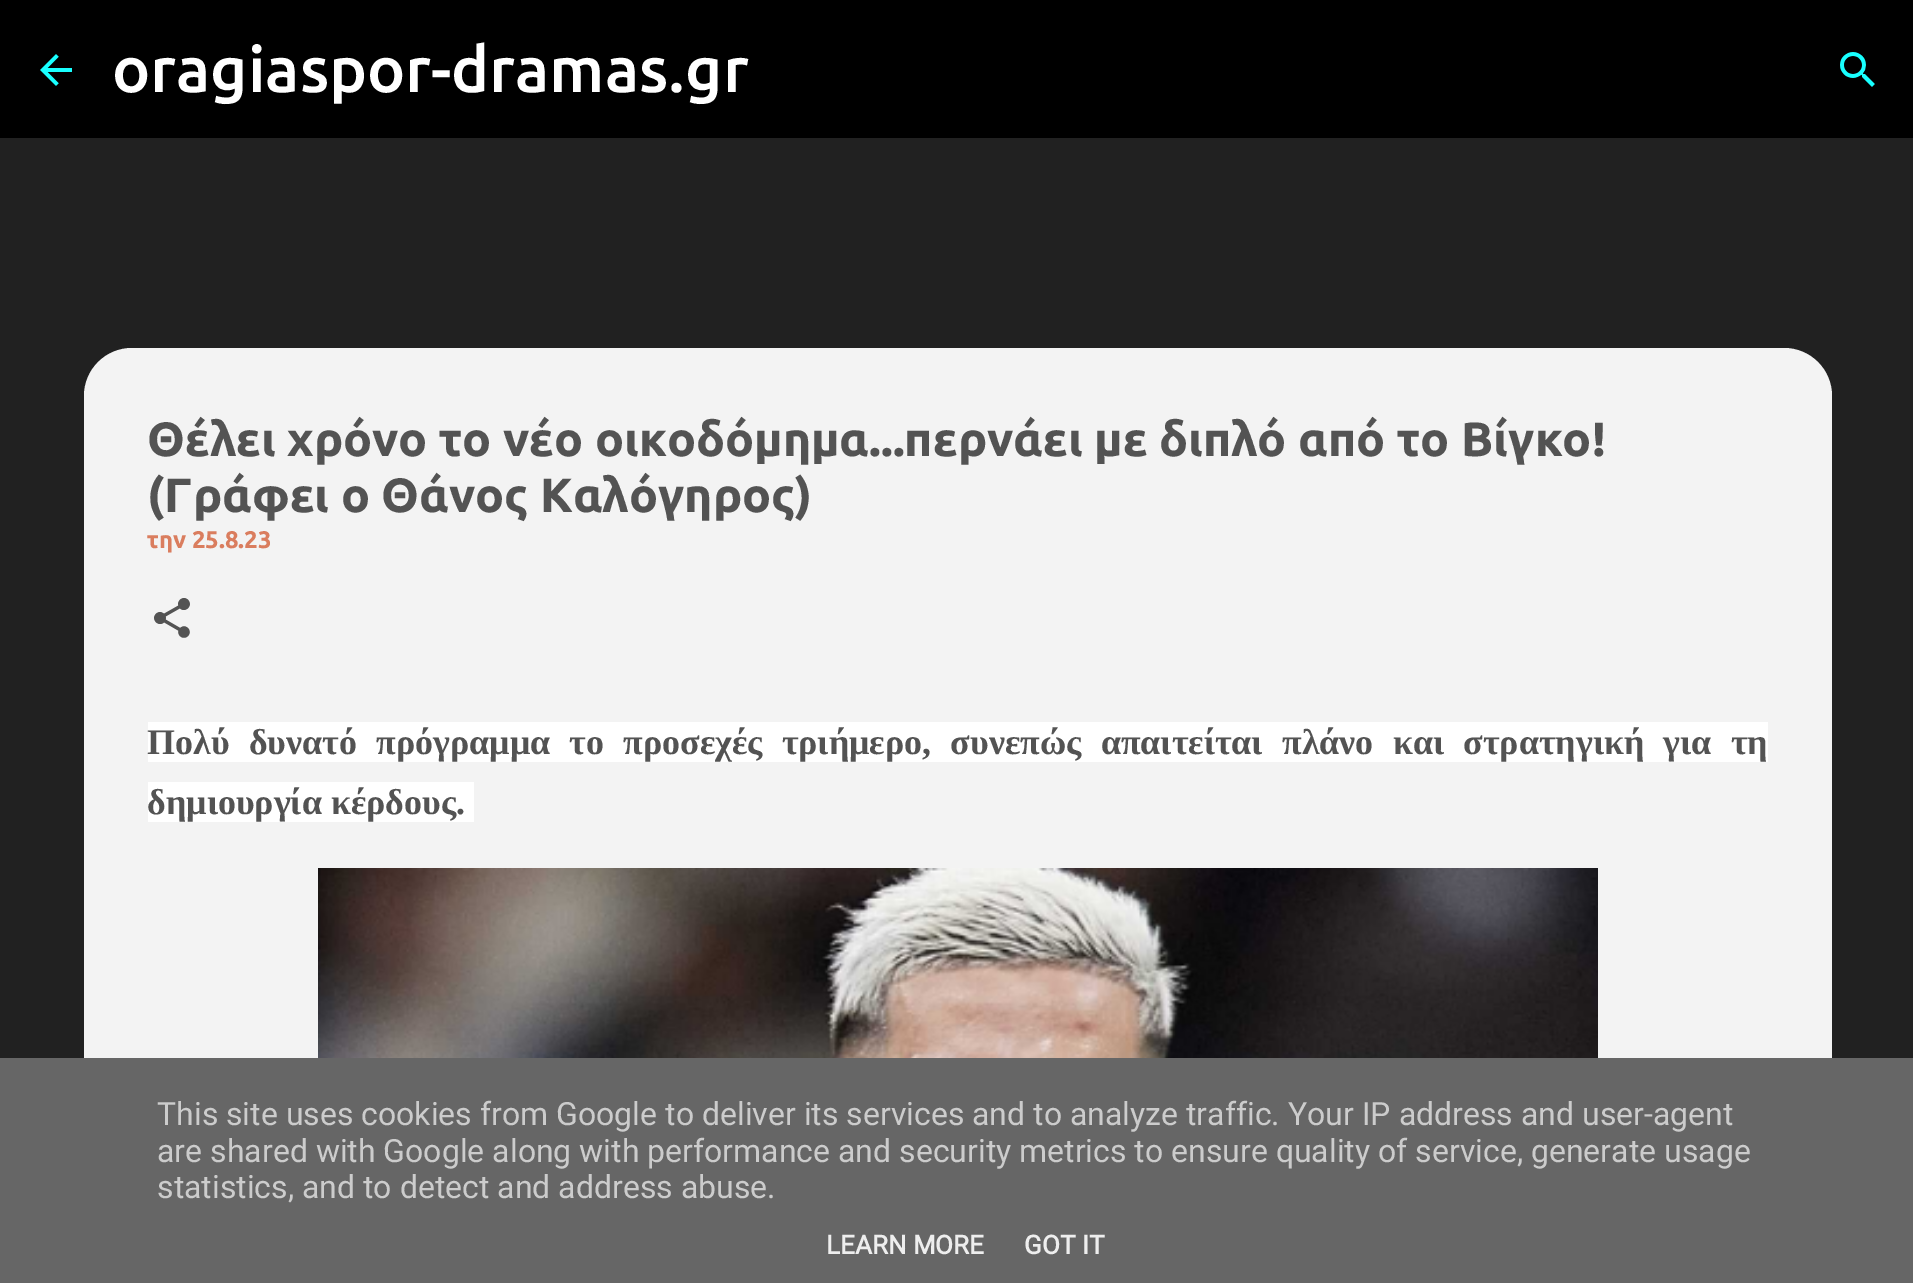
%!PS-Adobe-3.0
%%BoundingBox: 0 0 1913 1283
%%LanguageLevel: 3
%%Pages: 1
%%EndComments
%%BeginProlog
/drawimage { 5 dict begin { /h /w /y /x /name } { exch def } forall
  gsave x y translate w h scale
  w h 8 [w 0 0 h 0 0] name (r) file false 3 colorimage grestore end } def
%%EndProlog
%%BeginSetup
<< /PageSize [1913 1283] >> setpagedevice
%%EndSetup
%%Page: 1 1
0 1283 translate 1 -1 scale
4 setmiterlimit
0.129 setgray
0 0 1913 1283 rectfill
0 setgray
0 0 1913 138 rectfill
(images/1.raw) 40 54 32 32 drawimage
(images/2.raw) 1840 52 35 35 drawimage
0.953 setgray
newpath 132 348 moveto 1784 348 lineto 1810.5 348 1832 369.5 1832 396 curveto 1832 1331 lineto 84 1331 lineto 84 396 lineto 84 369.5 105.5 348 132 348 curveto closepath fill
(images/3.raw) 154 598 36 40 drawimage
1 setgray
148 722 1620 40 rectfill
148 782 326 40 rectfill
(images/4.raw) 318 868 1280 190 drawimage
0.4 setgray
0 1058 1913 225 rectfill
/Ubuntu-Medium [64 0 0 -64 0 0] selectfont
1 setgray
112 92 moveto (oragiaspor-dramas.gr) show
/Ubuntu-Bold [48 0 0 -48 0 0] selectfont
0.325 setgray
147 456 moveto (Θέλει χρόνο το νέο οικοδόμημα...περνάει με διπλό από το Βίγκο!) show
147 512 moveto (\(Γράφει ο Θάνος Καλόγηρος\)) show
/Ubuntu-Bold [24 0 0 -24 0 0] selectfont
0.855 0.49 0.369 setrgbcolor
147 548 moveto (την 25.8.23) show
/LiberationSerif-Bold [36 0 0 -36 0 0] selectfont
0.325 setgray
147 754 moveto 10.25 0 32 (Πολύ δυνατό πρόγραμμα το προσεχές τριήμερο, συνεπώς απαιτείται πλάνο και στρατηγική για τη) widthshow
147 814 moveto (δημιουργία κέρδους.) show
/Roboto-Regular [32 0 0 -32 0 0] selectfont
0.8 setgray
157 1125 moveto (This site uses cookies from Google to deliver its services and to analyze traffic. Your IP address and user-agent) show
157 1162 moveto (are shared with Google along with performance and security metrics to ensure quality of service, generate usage) show
157 1198 moveto (statistics, and to detect and address abuse.) show
/Roboto-Bold [26 0 0 -26 0 0] selectfont
0.933 setgray
826 1254 moveto (LEARN MORE) show
1024 1254 moveto (GOT IT) show
showpage
%%EOF
